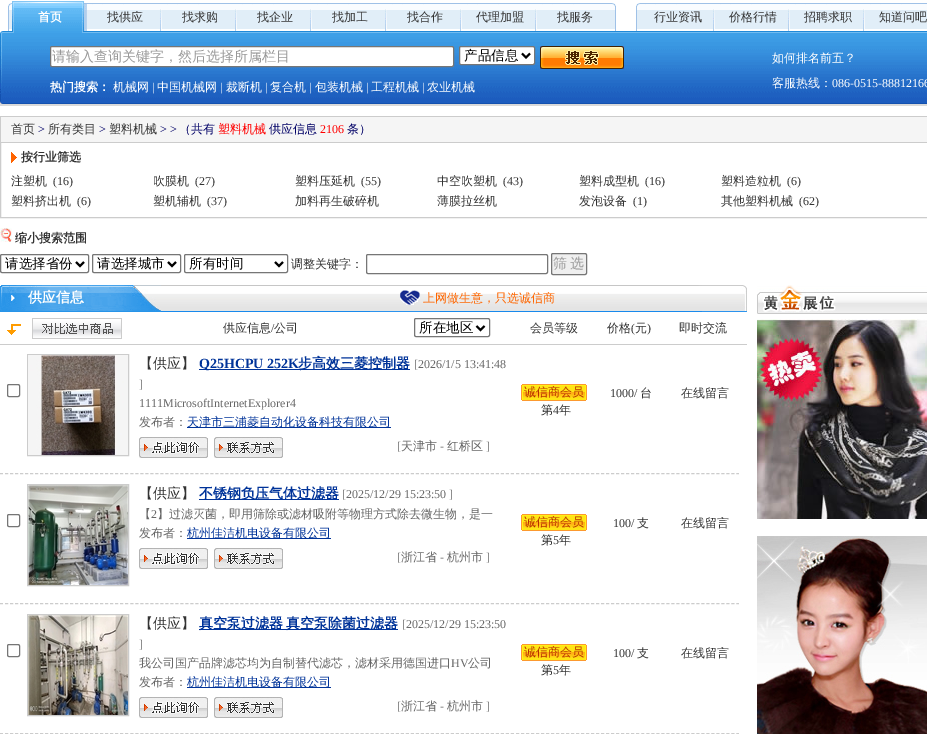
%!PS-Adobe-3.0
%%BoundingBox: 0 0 927 734
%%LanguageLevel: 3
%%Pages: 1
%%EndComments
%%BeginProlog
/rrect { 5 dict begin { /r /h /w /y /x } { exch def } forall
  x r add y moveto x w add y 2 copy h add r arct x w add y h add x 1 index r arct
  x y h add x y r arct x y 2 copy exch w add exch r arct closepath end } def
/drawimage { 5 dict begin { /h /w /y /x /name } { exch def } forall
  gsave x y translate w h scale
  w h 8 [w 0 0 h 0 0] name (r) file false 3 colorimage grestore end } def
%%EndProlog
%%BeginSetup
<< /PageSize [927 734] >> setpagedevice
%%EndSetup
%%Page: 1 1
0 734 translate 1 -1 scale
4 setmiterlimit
1 setgray
0 0 927 734 rectfill
(images/1.raw) 8 3 4 28 drawimage
(images/7.raw) 0 31 927 75 drawimage
(images/2.raw) 12 1 75 32 drawimage
(images/3.raw) 87 3 75 28 drawimage
(images/3.raw) 162 3 75 28 drawimage
(images/3.raw) 237 3 75 28 drawimage
(images/3.raw) 312 3 75 28 drawimage
(images/3.raw) 387 3 75 28 drawimage
(images/3.raw) 462 3 75 28 drawimage
(images/4.raw) 537 3 75 26 drawimage
(images/5.raw) 612 3 4 28 drawimage
(images/1.raw) 636 3 4 28 drawimage
(images/3.raw) 640 3 75 28 drawimage
(images/3.raw) 715 3 75 28 drawimage
(images/3.raw) 790 3 75 28 drawimage
(images/6.raw) 865 3 62 26 drawimage
50.5 46.5 403 20 1.5 rrect gsave fill grestore
0.463 setgray
stroke
1 setgray
459.5 46.5 75 18 1.5 rrect gsave fill grestore
0.463 setgray
stroke
0 setgray
2 setlinewidth
newpath 522 53.5 moveto 526 57.5 lineto 530 53.5 lineto stroke
(images/8.raw) 540 46 84 23 drawimage
0.8 setgray
1 setlinewidth
0.5 116.5 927 101 rectstroke
0.961 setgray
1 117 926 25 rectfill
0.8 setgray
1 142 926 1 rectfill
(images/9.raw) 11 152 6 11 drawimage
(images/10.raw) 0 228 12 14 drawimage
0.463 setgray
0.5 254.5 88 18 1.5 rrect stroke
0 setgray
2 setlinewidth
newpath 76 262 moveto 80 266 lineto 84 262 lineto stroke
0.463 setgray
1 setlinewidth
92.5 254.5 88 18 1.5 rrect stroke
0 setgray
2 setlinewidth
newpath 168 262 moveto 172 266 lineto 176 262 lineto stroke
0.463 setgray
1 setlinewidth
184.5 254.5 103 18 1.5 rrect stroke
0 setgray
2 setlinewidth
newpath 275 262 moveto 279 266 lineto 283 262 lineto stroke
0.463 setgray
1 setlinewidth
366.5 254.5 181 19 1.5 rrect stroke
0.937 setgray
551.5 253.5 35 21 1.5 rrect gsave fill grestore
0.463 setgray
stroke
(images/11.raw) 0 285 747 27 drawimage
(images/12.raw) 400 290 20 15 drawimage
0.8 setgray
0 344 747 1 rectfill
(images/13.raw) 7 324 14 11 drawimage
(images/14.raw) 32 318 90 21 drawimage
0.463 setgray
414.5 318.5 75 18 1.5 rrect stroke
0 setgray
2 setlinewidth
newpath 476.5 326 moveto 480.5 330 lineto 484.5 326 lineto stroke
0.8 setgray
1 setlinewidth
[3 2.01] 0 setdash
newpath 0 473.5 moveto 739 473.5 lineto stroke
0.463 setgray
[] 0 setdash
7.5 384.5 12 12 1.5 rrect stroke
0.8 setgray
27.5 354.5 101 101 rectstroke
(images/15.raw) 28 355 100 100 drawimage
0 0.2 0.6 setrgbcolor
199 369 211 1 rectfill
187 427 204 1 rectfill
(images/16.raw) 139 437 69 21 drawimage
(images/17.raw) 214 437 69 21 drawimage
(images/18.raw) 521 384 66 17 drawimage
0.8 setgray
[3 2.01] 0 setdash
newpath 0 603.5 moveto 739 603.5 lineto stroke
0.463 setgray
[] 0 setdash
7.5 514.5 12 12 1.5 rrect stroke
0.8 setgray
27.5 484.5 101 101 rectstroke
(images/19.raw) 28 485 100 100 drawimage
0 0.2 0.6 setrgbcolor
199 499 140 1 rectfill
187 538 144 1 rectfill
(images/16.raw) 139 548 69 21 drawimage
(images/17.raw) 214 548 69 21 drawimage
(images/18.raw) 521 514 66 17 drawimage
0.8 setgray
[3 2.01] 0 setdash
newpath 0 733.5 moveto 739 733.5 lineto stroke
0.463 setgray
[] 0 setdash
7.5 644.5 12 12 1.5 rrect stroke
0.8 setgray
27.5 614.5 101 101 rectstroke
(images/20.raw) 28 615 100 100 drawimage
0 0.2 0.6 setrgbcolor
199 629 199 1 rectfill
187 687 144 1 rectfill
(images/16.raw) 139 697 69 21 drawimage
(images/17.raw) 214 697 69 21 drawimage
(images/18.raw) 521 644 66 17 drawimage
(images/21.raw) 757 285 170 29 drawimage
(images/22.raw) 757 319 170 200 drawimage
(images/23.raw) 757 536 170 198 drawimage
/WenQuanYiZenHei-Bold [12 0 0 -12 0 0] selectfont
1 setgray
38 21 moveto (首页) show
/WenQuanYiZenHei-Medium [12 0 0 -12 0 0] selectfont
0.2 setgray
107 21 moveto (找供应) show
182 21 moveto (找求购) show
257 21 moveto (找企业) show
332 21 moveto (找加工) show
407 21 moveto (找合作) show
476 21 moveto (代理加盟) show
557 21 moveto (找服务) show
654 21 moveto (行业资讯) show
729 21 moveto (价格行情) show
804 21 moveto (招聘求职) show
879 21 moveto (知道问吧) show
/WenQuanYiZenHei-Medium [14 0 0 -14 0 0] selectfont
0.6 setgray
52 61 moveto (请输入查询关键字，然后选择所属栏目) show
/WenQuanYiZenHei-Medium [13.5 0 0 -13.5 0 0] selectfont
0 setgray
464 60 moveto (产品信息) show
/WenQuanYiZenHei-Bold [12 0 0 -12 0 0] selectfont
1 setgray
50 91 moveto (热门搜索：) show
/WenQuanYiZenHei-Medium [12 0 0 -12 0 0] selectfont
113 91 moveto (机械网) show
/LiberationSerif-Regular [12 0 0 -12 0 0] selectfont
152 91 moveto (|) show
/WenQuanYiZenHei-Medium [12 0 0 -12 0 0] selectfont
157 91 moveto (中国机械网) show
/LiberationSerif-Regular [12 0 0 -12 0 0] selectfont
220 91 moveto (|) show
/WenQuanYiZenHei-Medium [12 0 0 -12 0 0] selectfont
226 91 moveto (裁断机) show
/LiberationSerif-Regular [12 0 0 -12 0 0] selectfont
265 91 moveto (|) show
/WenQuanYiZenHei-Medium [12 0 0 -12 0 0] selectfont
270 91 moveto (复合机) show
/LiberationSerif-Regular [12 0 0 -12 0 0] selectfont
309 91 moveto (|) show
/WenQuanYiZenHei-Medium [12 0 0 -12 0 0] selectfont
315 91 moveto (包装机械) show
/LiberationSerif-Regular [12 0 0 -12 0 0] selectfont
366 91 moveto (|) show
/WenQuanYiZenHei-Medium [12 0 0 -12 0 0] selectfont
371 91 moveto (工程机械) show
/LiberationSerif-Regular [12 0 0 -12 0 0] selectfont
422 91 moveto (|) show
/WenQuanYiZenHei-Medium [12 0 0 -12 0 0] selectfont
427 91 moveto (农业机械) show
772 62 moveto (如何排名前五？) show
772 87 moveto (客服热线：) show
/LiberationSerif-Regular [12 0 0 -12 0 0] selectfont
832 87 moveto (086-0515-88812166) show
/WenQuanYiZenHei-Medium [12 0 0 -12 0 0] selectfont
0.2 setgray
11 133 moveto (首页) show
/LiberationSerif-Regular [12 0 0 -12 0 0] selectfont
0 0 0.4 setrgbcolor
38 133 moveto (>) show
/WenQuanYiZenHei-Medium [12 0 0 -12 0 0] selectfont
0.2 setgray
48 133 moveto (所有类目) show
/LiberationSerif-Regular [12 0 0 -12 0 0] selectfont
0 0 0.4 setrgbcolor
99 133 moveto (>) show
/WenQuanYiZenHei-Medium [12 0 0 -12 0 0] selectfont
0.2 setgray
109 133 moveto (塑料机械) show
/LiberationSerif-Regular [12 0 0 -12 0 0] selectfont
0 0 0.4 setrgbcolor
160 133 moveto (> >) show
/WenQuanYiZenHei-Medium [12 0 0 -12 0 0] selectfont
179 133 moveto (（共有) show
1 0 0 setrgbcolor
218 133 moveto (塑料机械) show
0 0 0.4 setrgbcolor
269 133 moveto (供应信息) show
/LiberationSerif-Regular [12 0 0 -12 0 0] selectfont
1 0 0 setrgbcolor
320 133 moveto (2106) show
/WenQuanYiZenHei-Medium [12 0 0 -12 0 0] selectfont
0 0 0.4 setrgbcolor
347 133 moveto (条）) show
/WenQuanYiZenHei-Bold [12 0 0 -12 0 0] selectfont
0.2 setgray
21 161 moveto (按行业筛选) show
/WenQuanYiZenHei-Medium [12 0 0 -12 0 0] selectfont
11 185 moveto (注塑机) show
/LiberationSerif-Regular [12 0 0 -12 0 0] selectfont
53 185 moveto (\(16\)) show
/WenQuanYiZenHei-Medium [12 0 0 -12 0 0] selectfont
153 185 moveto (吹膜机) show
/LiberationSerif-Regular [12 0 0 -12 0 0] selectfont
195 185 moveto (\(27\)) show
/WenQuanYiZenHei-Medium [12 0 0 -12 0 0] selectfont
295 185 moveto (塑料压延机) show
/LiberationSerif-Regular [12 0 0 -12 0 0] selectfont
361 185 moveto (\(55\)) show
/WenQuanYiZenHei-Medium [12 0 0 -12 0 0] selectfont
437 185 moveto (中空吹塑机) show
/LiberationSerif-Regular [12 0 0 -12 0 0] selectfont
503 185 moveto (\(43\)) show
/WenQuanYiZenHei-Medium [12 0 0 -12 0 0] selectfont
579 185 moveto (塑料成型机) show
/LiberationSerif-Regular [12 0 0 -12 0 0] selectfont
645 185 moveto (\(16\)) show
/WenQuanYiZenHei-Medium [12 0 0 -12 0 0] selectfont
721 185 moveto (塑料造粒机) show
/LiberationSerif-Regular [12 0 0 -12 0 0] selectfont
787 185 moveto (\(6\)) show
/WenQuanYiZenHei-Medium [12 0 0 -12 0 0] selectfont
11 205 moveto (塑料挤出机) show
/LiberationSerif-Regular [12 0 0 -12 0 0] selectfont
77 205 moveto (\(6\)) show
/WenQuanYiZenHei-Medium [12 0 0 -12 0 0] selectfont
153 205 moveto (塑机辅机) show
/LiberationSerif-Regular [12 0 0 -12 0 0] selectfont
207 205 moveto (\(37\)) show
/WenQuanYiZenHei-Medium [12 0 0 -12 0 0] selectfont
295 205 moveto (加料再生破碎机) show
437 205 moveto (薄膜拉丝机) show
579 205 moveto (发泡设备) show
/LiberationSerif-Regular [12 0 0 -12 0 0] selectfont
633 205 moveto (\(1\)) show
/WenQuanYiZenHei-Medium [12 0 0 -12 0 0] selectfont
721 205 moveto (其他塑料机械) show
/LiberationSerif-Regular [12 0 0 -12 0 0] selectfont
799 205 moveto (\(62\)) show
/WenQuanYiZenHei-Bold [12 0 0 -12 0 0] selectfont
15 242 moveto (缩小搜索范围) show
/WenQuanYiZenHei-Medium [13.5 0 0 -13.5 0 0] selectfont
0 setgray
5 268 moveto (请选择省份) show
97 268 moveto (请选择城市) show
189 268 moveto (所有时间) show
/WenQuanYiZenHei-Medium [12 0 0 -12 0 0] selectfont
0.2 setgray
291 268 moveto (调整关键字：) show
/WenQuanYiZenHei-Medium [14 0 0 -14 0 0] selectfont
0.6 setgray
553 268 moveto -1 0 32 (筛 选) widthshow
/WenQuanYiZenHei-Bold [14 0 0 -14 0 0] selectfont
1 setgray
28 302 moveto (供应信息) show
/WenQuanYiZenHei-Medium [12 0 0 -12 0 0] selectfont
1 0.4 0 setrgbcolor
423 302 moveto (上网做生意，只选诚信商) show
0.2 setgray
223 332 moveto (供应信息) show
/LiberationSerif-Regular [12 0 0 -12 0 0] selectfont
271 332 moveto (/) show
/WenQuanYiZenHei-Medium [12 0 0 -12 0 0] selectfont
274 332 moveto (公司) show
/WenQuanYiZenHei-Medium [13.5 0 0 -13.5 0 0] selectfont
0 setgray
419 332 moveto (所在地区) show
/WenQuanYiZenHei-Medium [12 0 0 -12 0 0] selectfont
0.2 setgray
530 332 moveto (会员等级) show
607 332 moveto (价格) show
/LiberationSerif-Regular [12 0 0 -12 0 0] selectfont
631 332 moveto (\() show
/WenQuanYiZenHei-Medium [12 0 0 -12 0 0] selectfont
635 332 moveto (元) show
/LiberationSerif-Regular [12 0 0 -12 0 0] selectfont
647 332 moveto (\)) show
/WenQuanYiZenHei-Medium [12 0 0 -12 0 0] selectfont
679 332 moveto (即时交流) show
/WenQuanYiZenHei-Medium [14 0 0 -14 0 0] selectfont
139 368 moveto (【供应】) show
/LiberationSerif-Bold [14 0 0 -14 0 0] selectfont
0 0.2 0.6 setrgbcolor
199 368 moveto (Q25HCPU 252K) show
/WenQuanYiZenHei-Bold [14 0 0 -14 0 0] selectfont
298 368 moveto (步高效三菱控制器) show
/LiberationSerif-Regular [12 0 0 -12 0 0] selectfont
0.4 setgray
414 368 moveto ([2026/1/5 13:41:48) show
139 388 moveto (]) show
139 407 moveto (1111MicrosoftInternetExplorer4) show
/WenQuanYiZenHei-Medium [12 0 0 -12 0 0] selectfont
139 426 moveto (发布者：) show
0 0.2 0.6 setrgbcolor
187 426 moveto (天津市三浦菱自动化设备科技有限公司) show
/LiberationSerif-Regular [12 0 0 -12 0 0] selectfont
0.4 setgray
397 450 moveto ([) show
/WenQuanYiZenHei-Medium [12 0 0 -12 0 0] selectfont
401 450 moveto (天津市) show
/LiberationSerif-Regular [12 0 0 -12 0 0] selectfont
440 450 moveto (-) show
/WenQuanYiZenHei-Medium [12 0 0 -12 0 0] selectfont
447 450 moveto (红桥区) show
/LiberationSerif-Regular [12 0 0 -12 0 0] selectfont
486 450 moveto (]) show
/WenQuanYiZenHei-Medium [12 0 0 -12 0 0] selectfont
0.722 0.188 0 setrgbcolor
524 396 moveto (诚信商会员) show
0.2 setgray
541 414 moveto (第) show
/LiberationSerif-Regular [12 0 0 -12 0 0] selectfont
553 414 moveto (4) show
/WenQuanYiZenHei-Medium [12 0 0 -12 0 0] selectfont
559 414 moveto (年) show
/LiberationSerif-Regular [12 0 0 -12 0 0] selectfont
610 397 moveto (1000/) show
/WenQuanYiZenHei-Medium [12 0 0 -12 0 0] selectfont
640 397 moveto (台) show
681 397 moveto (在线留言) show
/WenQuanYiZenHei-Medium [14 0 0 -14 0 0] selectfont
139 498 moveto (【供应】) show
/WenQuanYiZenHei-Bold [14 0 0 -14 0 0] selectfont
0 0.2 0.6 setrgbcolor
199 498 moveto (不锈钢负压气体过滤器) show
/LiberationSerif-Regular [12 0 0 -12 0 0] selectfont
0.4 setgray
342 498 moveto ([2025/12/29 15:23:50 ]) show
/WenQuanYiZenHei-Medium [12 0 0 -12 0 0] selectfont
139 518 moveto (【) show
/LiberationSerif-Regular [12 0 0 -12 0 0] selectfont
151 518 moveto (2) show
/WenQuanYiZenHei-Medium [12 0 0 -12 0 0] selectfont
157 518 moveto (】过滤灭菌，即用筛除或滤材吸附等物理方式除去微生物，是一) show
139 537 moveto (发布者：) show
0 0.2 0.6 setrgbcolor
187 537 moveto (杭州佳洁机电设备有限公司) show
/LiberationSerif-Regular [12 0 0 -12 0 0] selectfont
0.4 setgray
397 561 moveto ([) show
/WenQuanYiZenHei-Medium [12 0 0 -12 0 0] selectfont
401 561 moveto (浙江省) show
/LiberationSerif-Regular [12 0 0 -12 0 0] selectfont
440 561 moveto (-) show
/WenQuanYiZenHei-Medium [12 0 0 -12 0 0] selectfont
447 561 moveto (杭州市) show
/LiberationSerif-Regular [12 0 0 -12 0 0] selectfont
486 561 moveto (]) show
/WenQuanYiZenHei-Medium [12 0 0 -12 0 0] selectfont
0.722 0.188 0 setrgbcolor
524 526 moveto (诚信商会员) show
0.2 setgray
541 544 moveto (第) show
/LiberationSerif-Regular [12 0 0 -12 0 0] selectfont
553 544 moveto (5) show
/WenQuanYiZenHei-Medium [12 0 0 -12 0 0] selectfont
559 544 moveto (年) show
/LiberationSerif-Regular [12 0 0 -12 0 0] selectfont
613 527 moveto (100/) show
/WenQuanYiZenHei-Medium [12 0 0 -12 0 0] selectfont
637 527 moveto (支) show
681 527 moveto (在线留言) show
/WenQuanYiZenHei-Medium [14 0 0 -14 0 0] selectfont
139 628 moveto (【供应】) show
/WenQuanYiZenHei-Bold [14 0 0 -14 0 0] selectfont
0 0.2 0.6 setrgbcolor
199 628 moveto -1 0 32 (真空泵过滤器 真空泵除菌过滤器) widthshow
/LiberationSerif-Regular [12 0 0 -12 0 0] selectfont
0.4 setgray
402 628 moveto ([2025/12/29 15:23:50) show
139 648 moveto (]) show
/WenQuanYiZenHei-Medium [12 0 0 -12 0 0] selectfont
139 667 moveto (我公司国产品牌滤芯均为自制替代滤芯，滤材采用德国进口) show
/LiberationSerif-Regular [12 0 0 -12 0 0] selectfont
451 667 moveto (HV) show
/WenQuanYiZenHei-Medium [12 0 0 -12 0 0] selectfont
468 667 moveto (公司) show
139 686 moveto (发布者：) show
0 0.2 0.6 setrgbcolor
187 686 moveto (杭州佳洁机电设备有限公司) show
/LiberationSerif-Regular [12 0 0 -12 0 0] selectfont
0.4 setgray
397 710 moveto ([) show
/WenQuanYiZenHei-Medium [12 0 0 -12 0 0] selectfont
401 710 moveto (浙江省) show
/LiberationSerif-Regular [12 0 0 -12 0 0] selectfont
440 710 moveto (-) show
/WenQuanYiZenHei-Medium [12 0 0 -12 0 0] selectfont
447 710 moveto (杭州市) show
/LiberationSerif-Regular [12 0 0 -12 0 0] selectfont
486 710 moveto (]) show
/WenQuanYiZenHei-Medium [12 0 0 -12 0 0] selectfont
0.722 0.188 0 setrgbcolor
524 656 moveto (诚信商会员) show
0.2 setgray
541 674 moveto (第) show
/LiberationSerif-Regular [12 0 0 -12 0 0] selectfont
553 674 moveto (5) show
/WenQuanYiZenHei-Medium [12 0 0 -12 0 0] selectfont
559 674 moveto (年) show
/LiberationSerif-Regular [12 0 0 -12 0 0] selectfont
613 657 moveto (100/) show
/WenQuanYiZenHei-Medium [12 0 0 -12 0 0] selectfont
637 657 moveto (支) show
681 657 moveto (在线留言) show
showpage
%%EOF
